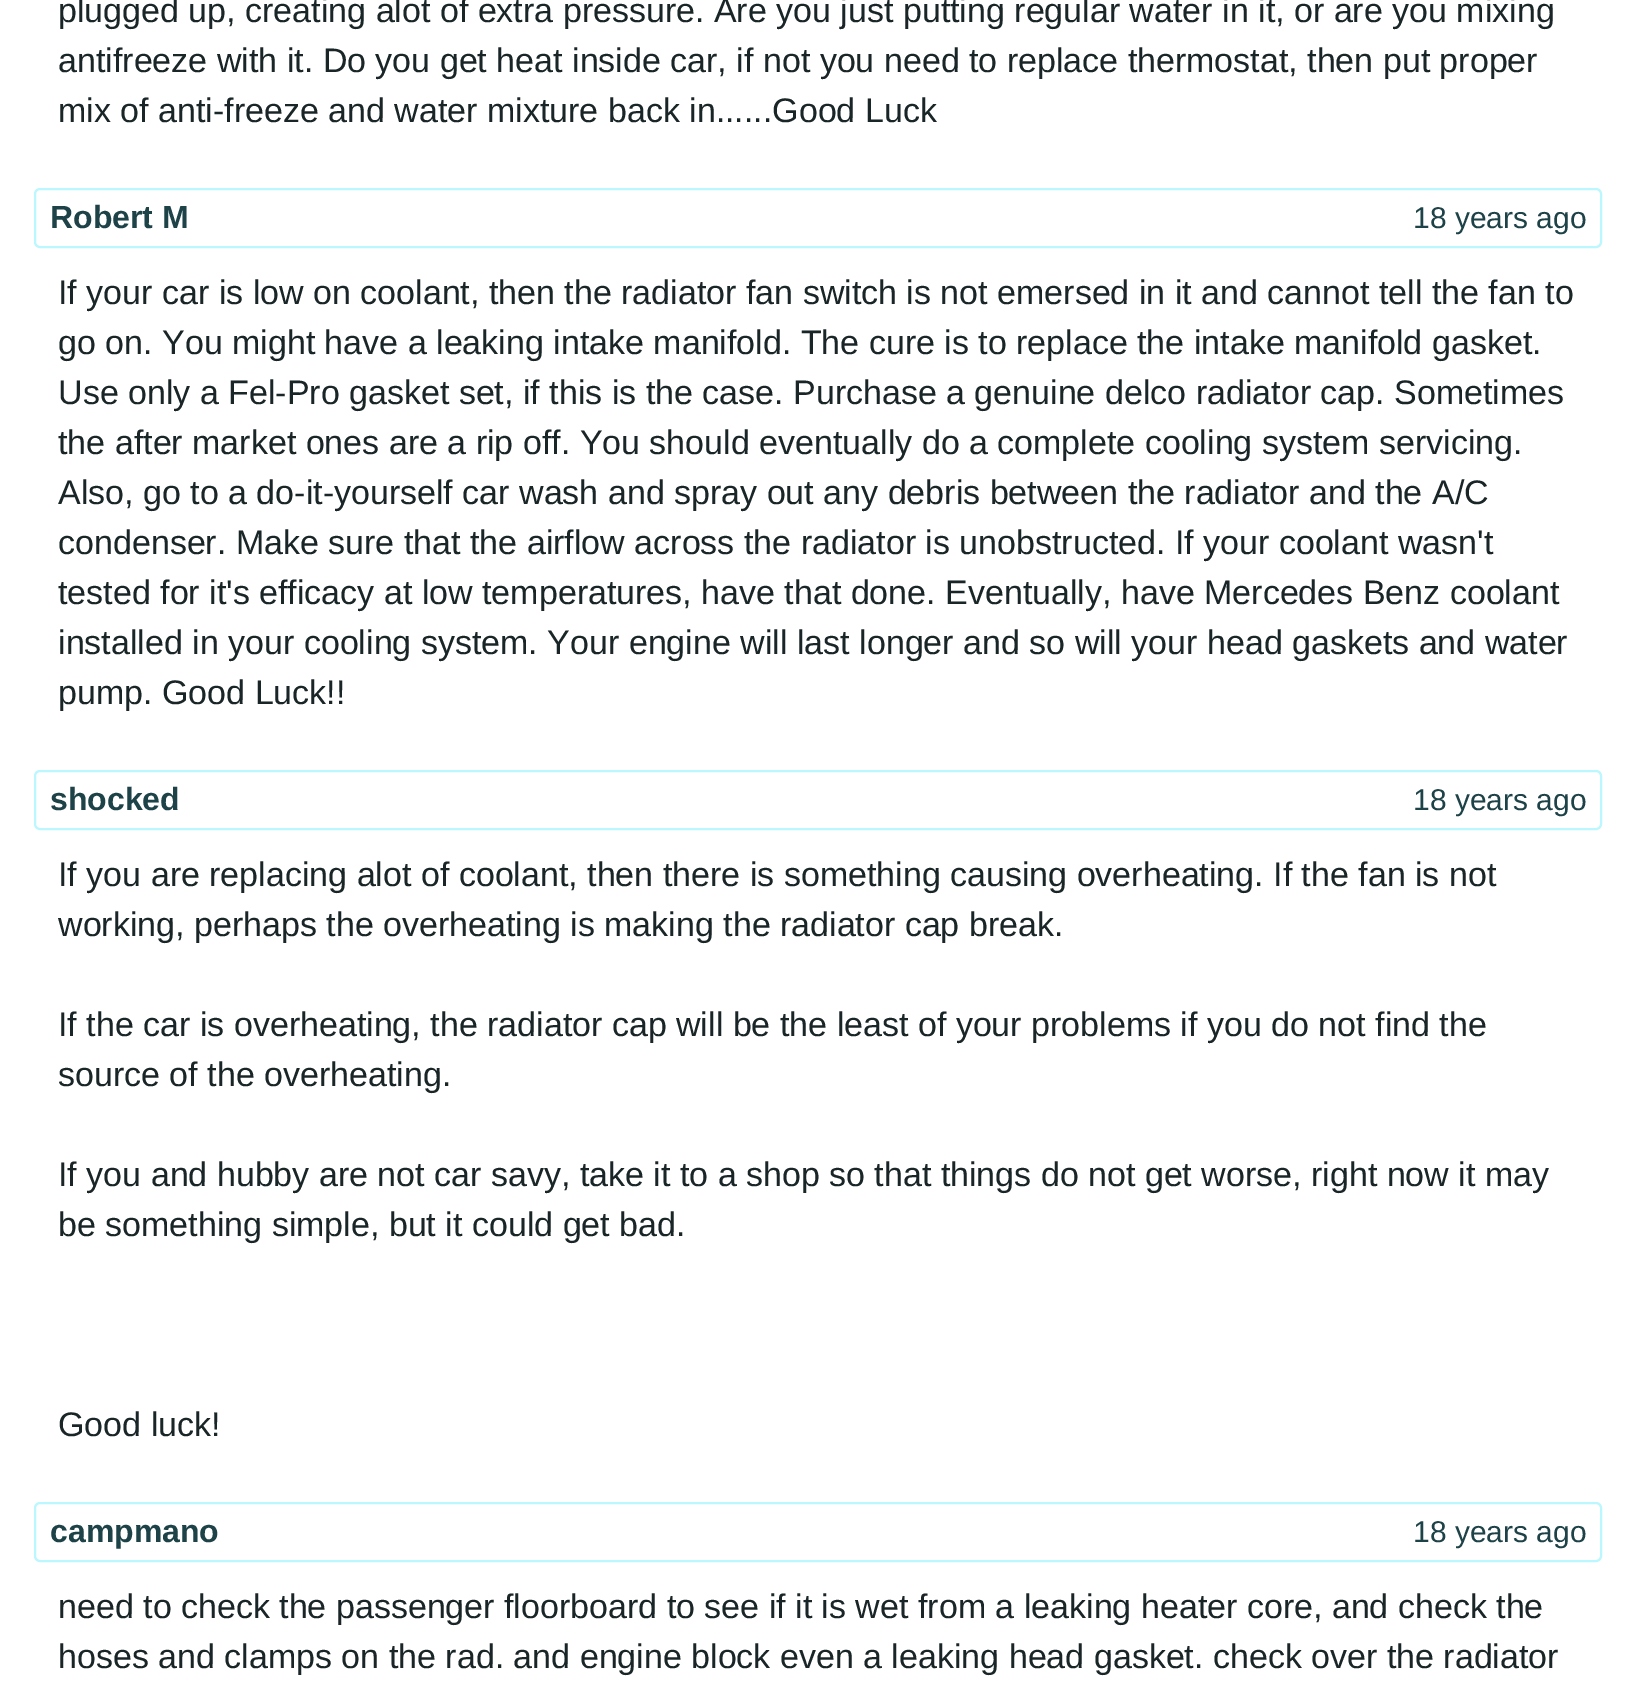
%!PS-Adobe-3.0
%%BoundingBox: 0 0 1635 1681
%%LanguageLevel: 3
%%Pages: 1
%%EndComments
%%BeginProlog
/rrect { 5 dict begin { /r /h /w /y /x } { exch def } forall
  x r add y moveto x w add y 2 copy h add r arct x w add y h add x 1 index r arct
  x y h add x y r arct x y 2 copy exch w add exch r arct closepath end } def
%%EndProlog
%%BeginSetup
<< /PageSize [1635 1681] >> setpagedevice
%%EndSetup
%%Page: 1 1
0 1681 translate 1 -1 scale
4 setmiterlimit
1 setgray
0 0 1635 1681 rectfill
0.733 0.969 1 setrgbcolor
2 setlinewidth
35 189 1566 58 5 rrect stroke
35 771 1566 58 5 rrect stroke
35 1503 1566 58 5 rrect stroke
/LiberationSans-Regular [34 0 0 -34 0 0] selectfont
0.098 0.145 0.153 setrgbcolor
58 22 moveto (plugged up, creating alot of extra pressure. Are you just putting regular water in it, or are you mixing) show
58 72 moveto (antifreeze with it. Do you get heat inside car, if not you need to replace thermostat, then put proper) show
58 122 moveto (mix of anti-freeze and water mixture back in......Good Luck) show
/LiberationSans-Bold [32 0 0 -32 0 0] selectfont
0.114 0.259 0.278 setrgbcolor
50 228 moveto (Robert M) show
/LiberationSans-Regular [30 0 0 -30 0 0] selectfont
1413 228 moveto (18 years ago) show
/LiberationSans-Regular [34 0 0 -34 0 0] selectfont
0.098 0.145 0.153 setrgbcolor
58 304 moveto (If your car is low on coolant, then the radiator fan switch is not emersed in it and cannot tell the fan to) show
58 354 moveto (go on. You might have a leaking intake manifold. The cure is to replace the intake manifold gasket.) show
58 404 moveto (Use only a Fel-Pro gasket set, if this is the case. Purchase a genuine delco radiator cap. Sometimes) show
58 454 moveto (the after market ones are a rip off. You should eventually do a complete cooling system servicing.) show
58 504 moveto (Also, go to a do-it-yourself car wash and spray out any debris between the radiator and the A/C) show
58 554 moveto (condenser. Make sure that the airflow across the radiator is unobstructed. If your coolant wasn't) show
58 604 moveto (tested for it's efficacy at low temperatures, have that done. Eventually, have Mercedes Benz coolant) show
58 654 moveto (installed in your cooling system. Your engine will last longer and so will your head gaskets and water) show
58 704 moveto (pump. Good Luck!!) show
/LiberationSans-Bold [32 0 0 -32 0 0] selectfont
0.114 0.259 0.278 setrgbcolor
50 810 moveto (shocked) show
/LiberationSans-Regular [30 0 0 -30 0 0] selectfont
1413 810 moveto (18 years ago) show
/LiberationSans-Regular [34 0 0 -34 0 0] selectfont
0.098 0.145 0.153 setrgbcolor
58 886 moveto (If you are replacing alot of coolant, then there is something causing overheating. If the fan is not) show
58 936 moveto (working, perhaps the overheating is making the radiator cap break.) show
58 1036 moveto (If the car is overheating, the radiator cap will be the least of your problems if you do not find the) show
58 1086 moveto (source of the overheating.) show
58 1186 moveto (If you and hubby are not car savy, take it to a shop so that things do not get worse, right now it may) show
58 1236 moveto (be something simple, but it could get bad.) show
58 1436 moveto (Good luck!) show
/LiberationSans-Bold [32 0 0 -32 0 0] selectfont
0.114 0.259 0.278 setrgbcolor
50 1542 moveto (campmano) show
/LiberationSans-Regular [30 0 0 -30 0 0] selectfont
1413 1542 moveto (18 years ago) show
/LiberationSans-Regular [34 0 0 -34 0 0] selectfont
0.098 0.145 0.153 setrgbcolor
58 1618 moveto (need to check the passenger floorboard to see if it is wet from a leaking heater core, and check the) show
58 1668 moveto (hoses and clamps on the rad. and engine block even a leaking head gasket. check over the radiator) show
showpage
%%EOF
